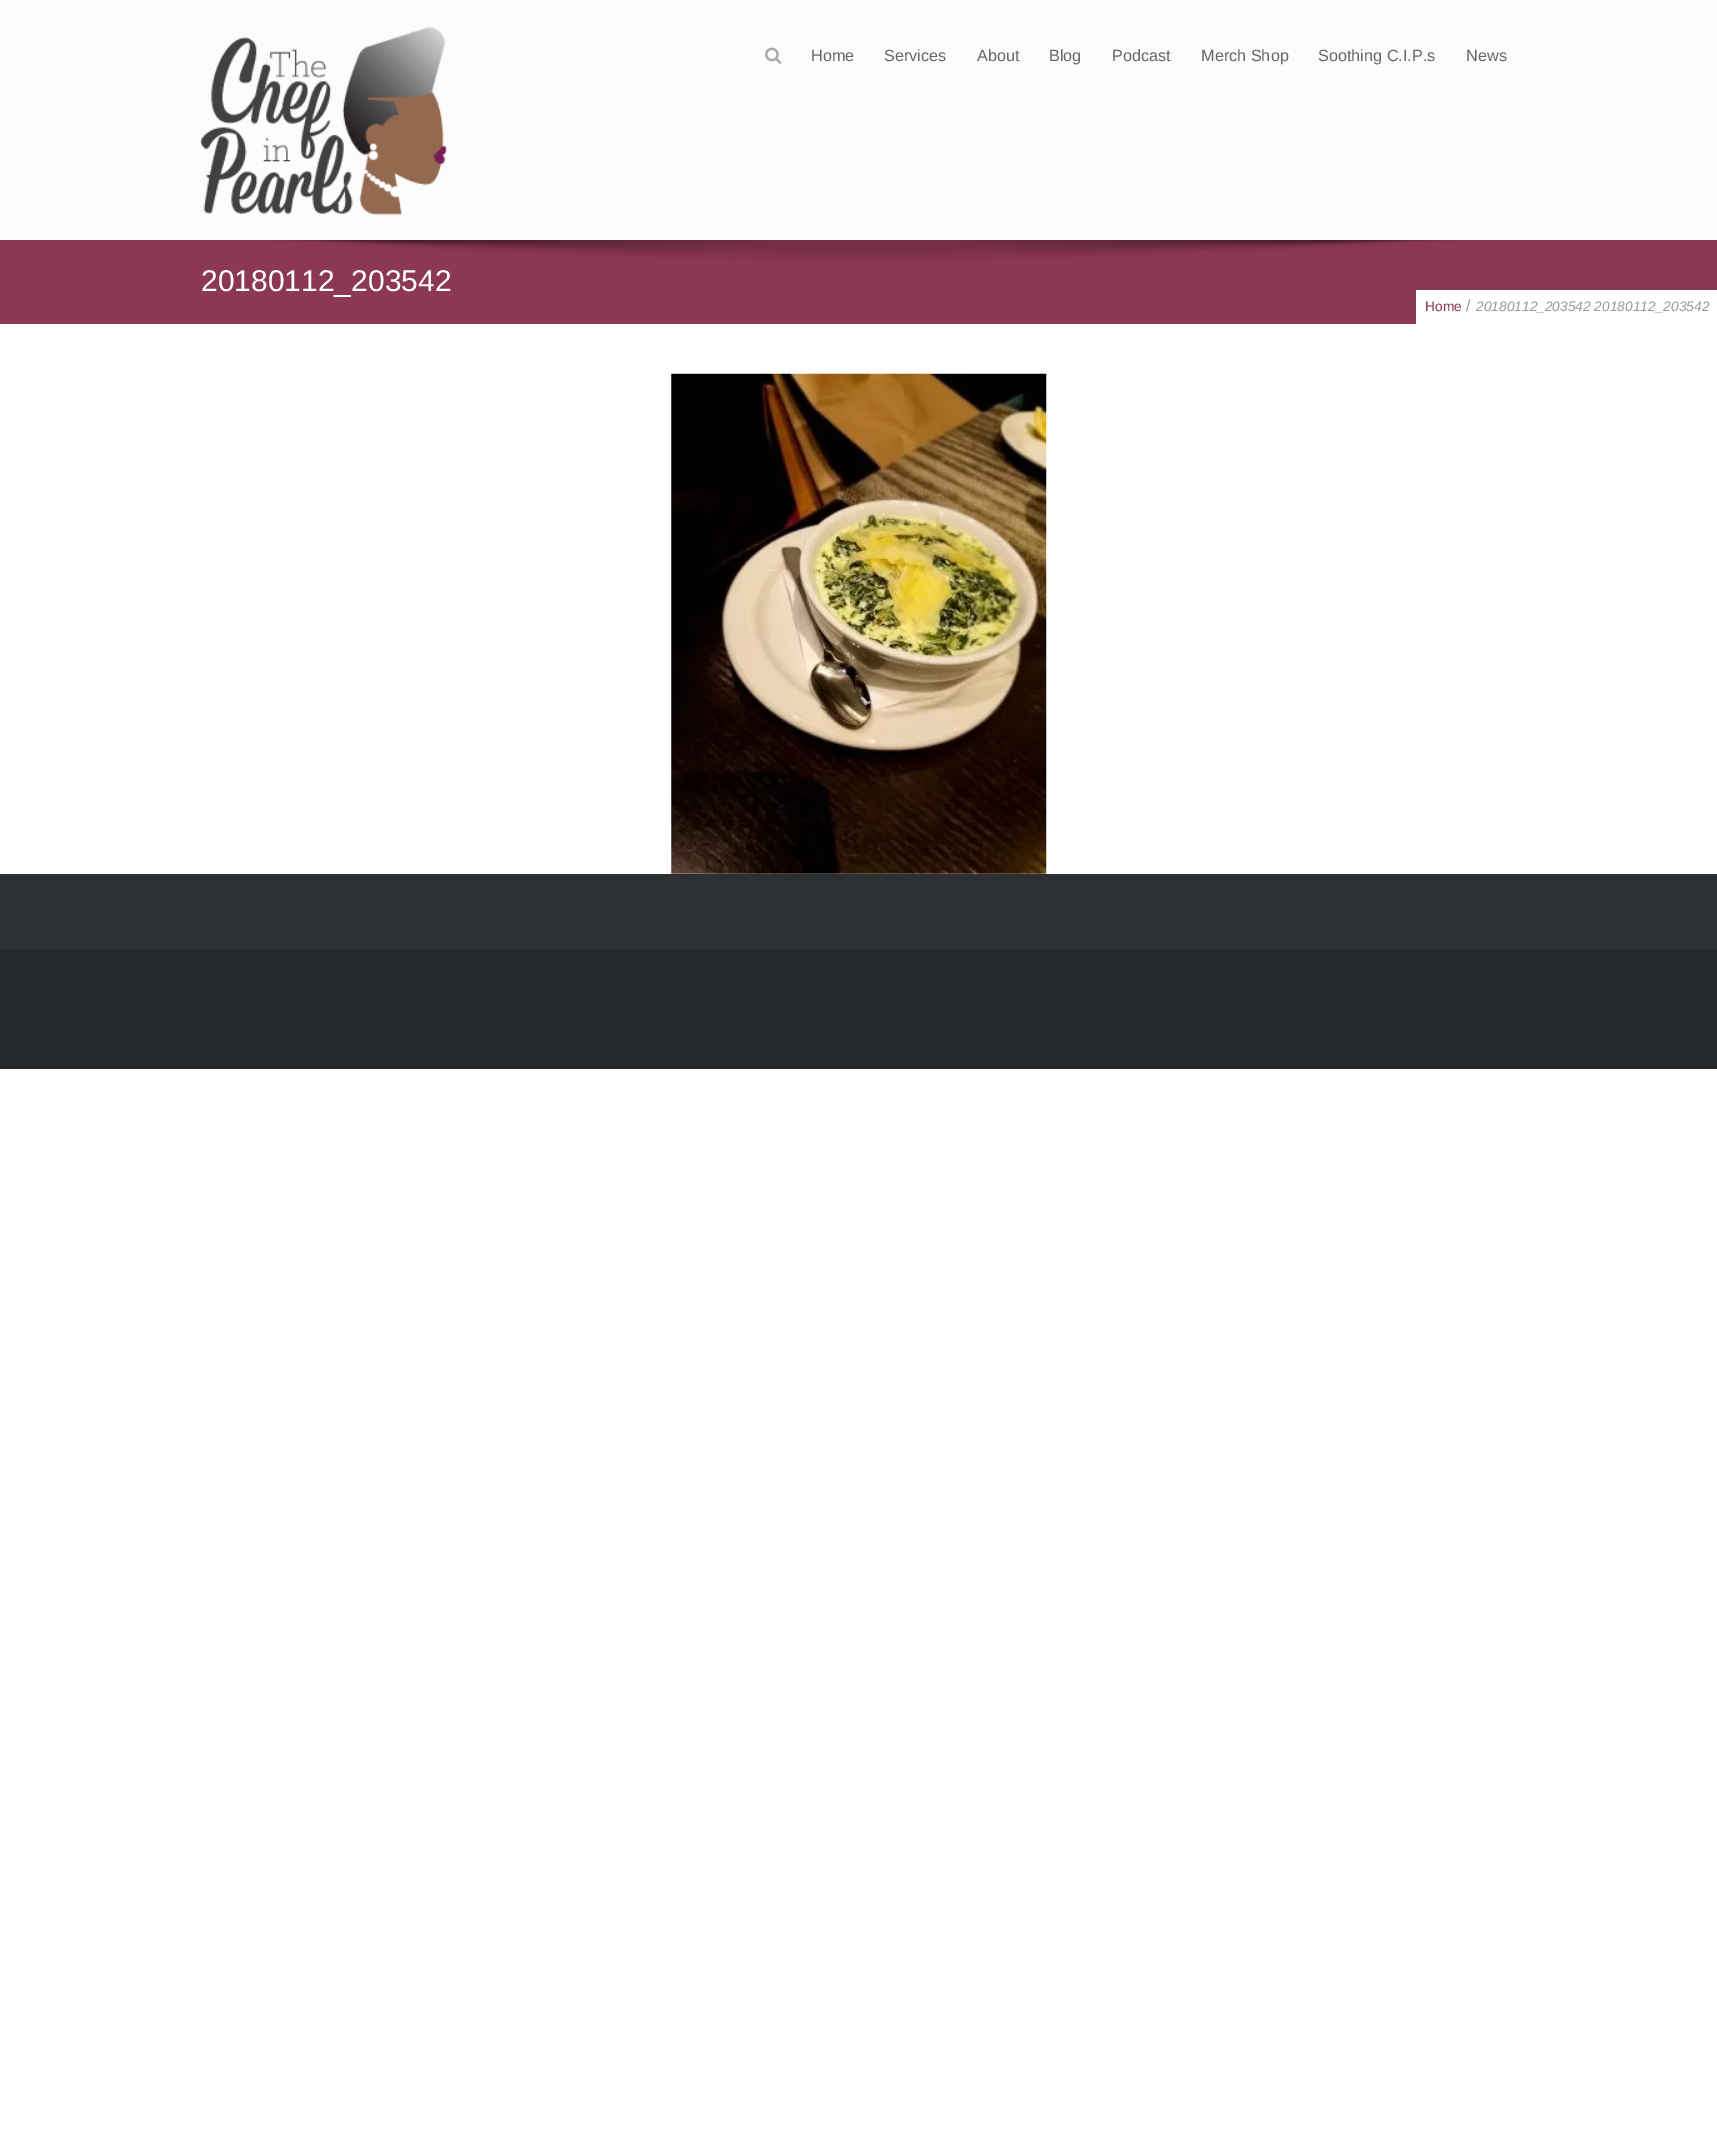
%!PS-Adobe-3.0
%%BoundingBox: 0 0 1717 2131
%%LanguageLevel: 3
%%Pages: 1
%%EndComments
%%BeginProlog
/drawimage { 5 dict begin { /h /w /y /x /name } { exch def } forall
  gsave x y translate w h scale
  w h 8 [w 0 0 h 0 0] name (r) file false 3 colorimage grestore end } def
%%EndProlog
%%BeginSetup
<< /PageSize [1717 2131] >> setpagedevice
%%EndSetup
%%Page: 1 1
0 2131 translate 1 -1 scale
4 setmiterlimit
1 setgray
0 0 1717 2131 rectfill
0.988 setgray
0 1 1717 239 rectfill
(images/1.raw) 200 27 247 188 drawimage
(images/2.raw) 765 47 17 17 drawimage
0.549 0.216 0.325 setrgbcolor
0 240 1717 84 rectfill
(images/3.raw) 261 240 1206 23 drawimage
1 setgray
1416 290 301 34 rectfill
(images/4.raw) 671 373 376 501 drawimage
0.176 0.188 0.2 setrgbcolor
0 874 1717 76 rectfill
0.125 0.137 0.145 setrgbcolor
0 950 1717 1 rectfill
0.149 0.161 0.169 setrgbcolor
0 951 1717 118 rectfill
/LiberationSans-Regular [16.25 0 0 -16.25 0 0] selectfont
0.4 setgray
811 61 moveto (Home) show
884 61 moveto (Services) show
977 61 moveto (About) show
1049 61 moveto (Blog) show
1112 61 moveto (Podcast) show
1201 61 moveto (Merch Shop) show
1318 61 moveto (Soothing C.I.P.s) show
1466 61 moveto (News) show
/LiberationSans-Regular [30 0 0 -30 0 0] selectfont
1 setgray
201 291 moveto (20180112_203542) show
/LiberationSans-Regular [13.75 0 0 -13.75 0 0] selectfont
0.549 0.216 0.325 setrgbcolor
1425 311 moveto (Home) show
/LiberationSans-Regular [16.25 0 0 -16.25 0 0] selectfont
0.6 setgray
1466 311 moveto (/) show
/LiberationSans-Italic [13.75 0 0 -13.75 0 0] selectfont
1476 311 moveto (20180112_203542 20180112_203542) show
showpage
%%EOF
